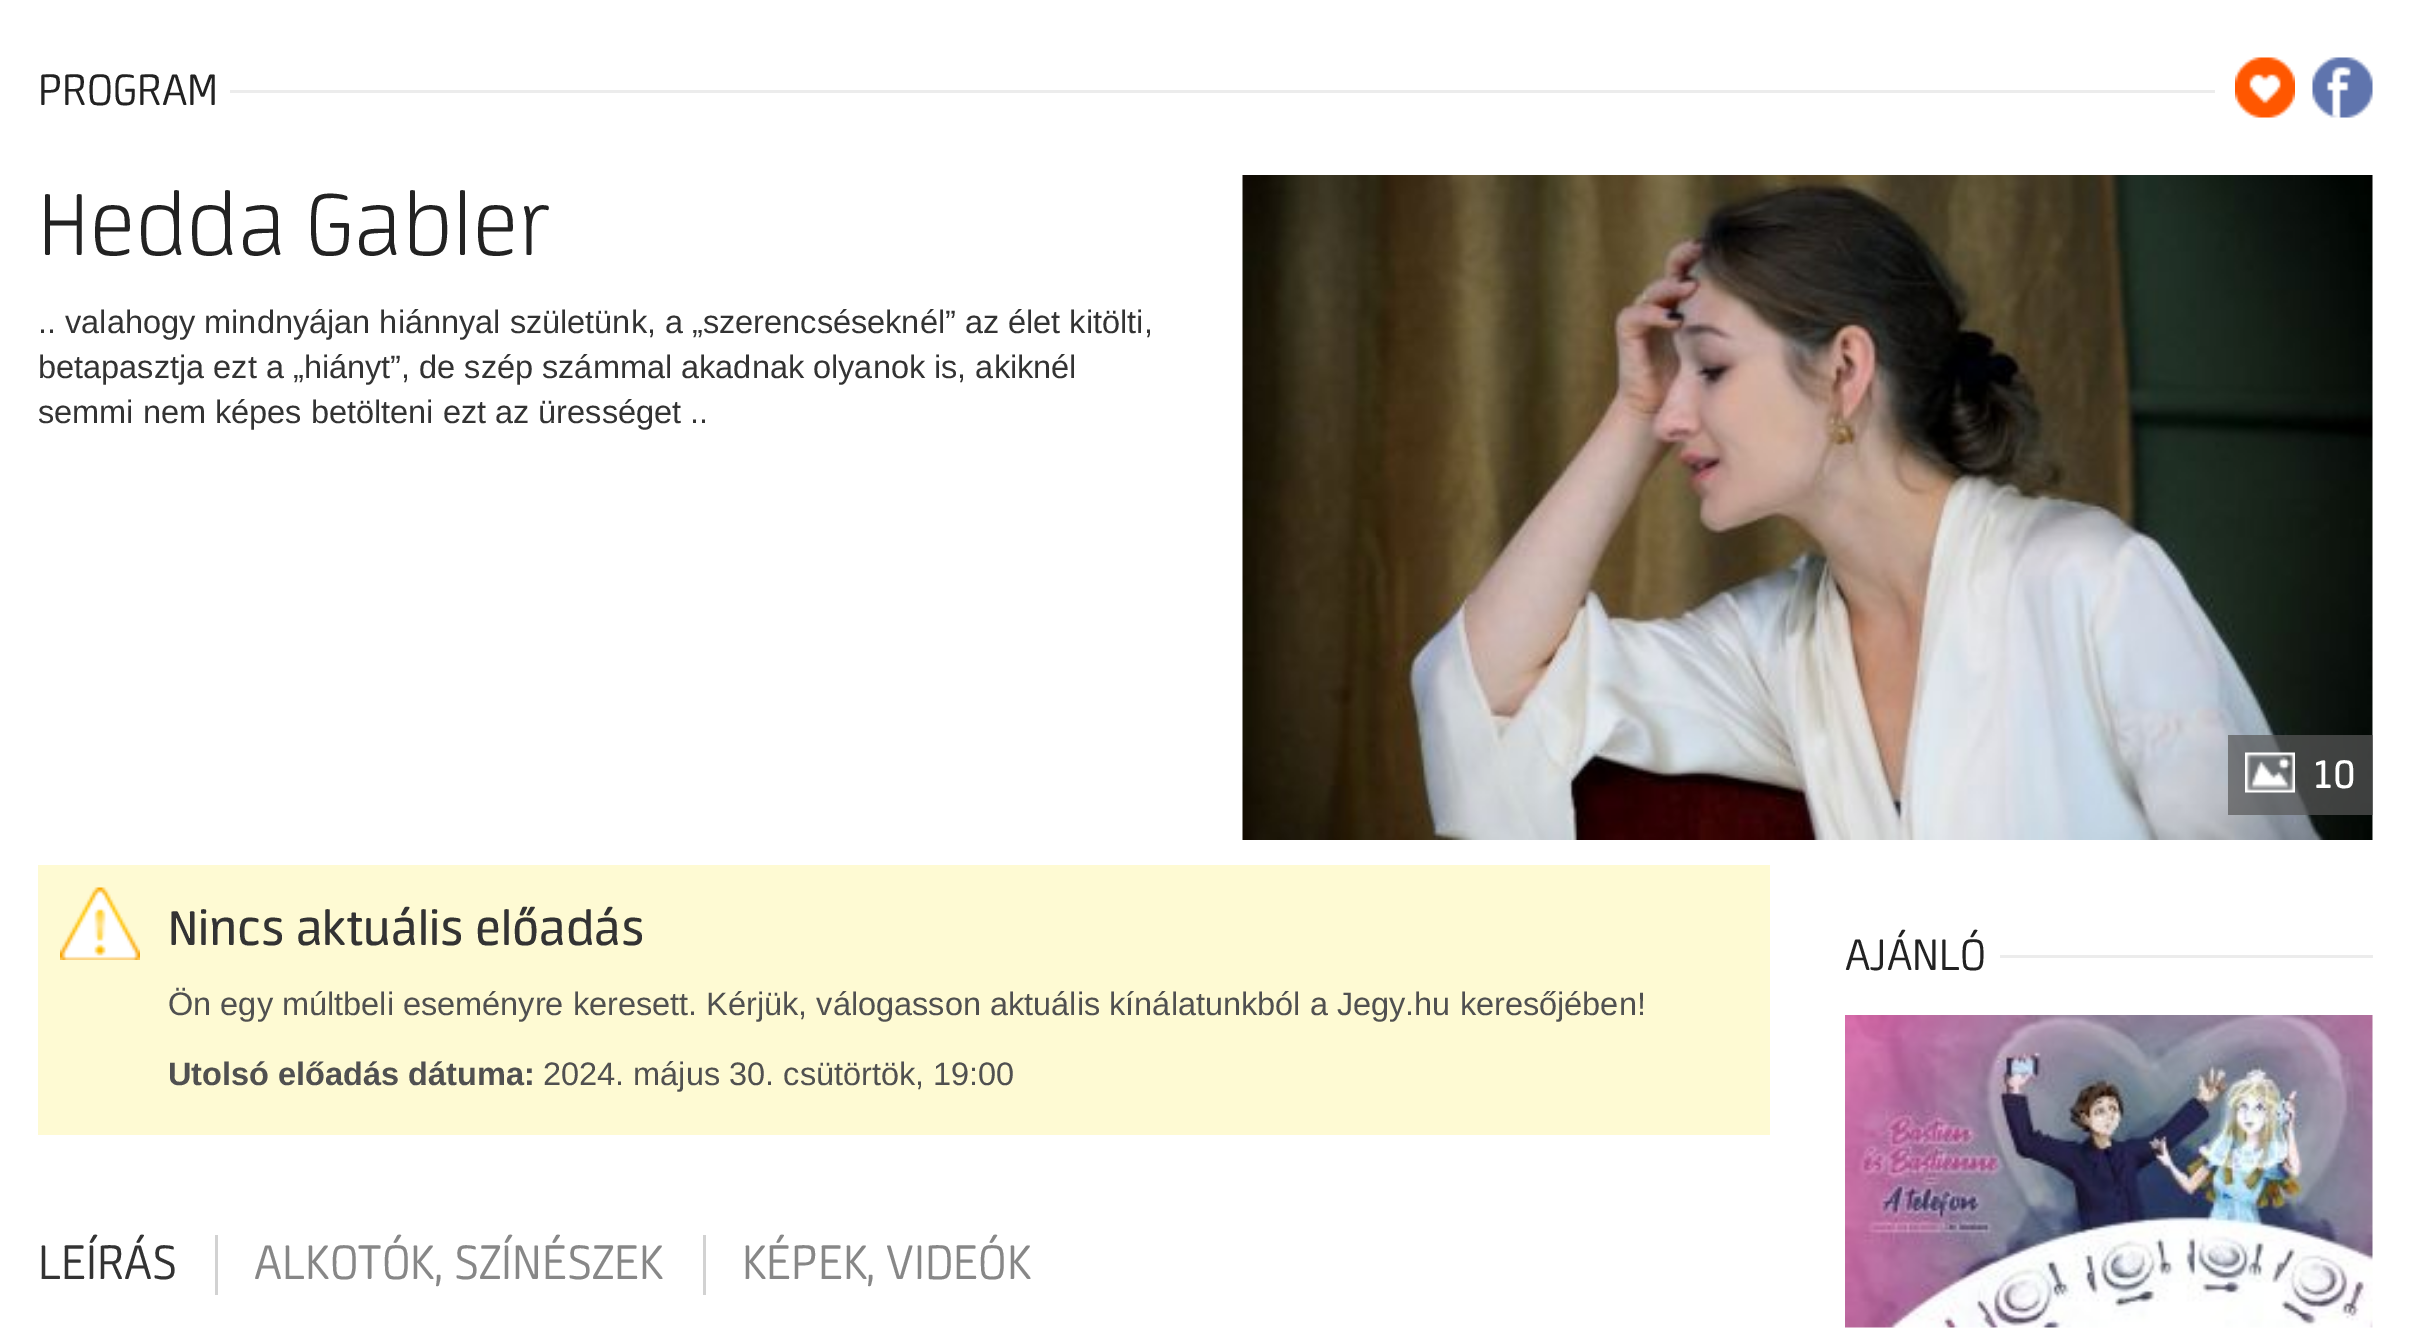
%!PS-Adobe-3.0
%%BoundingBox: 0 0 2409 1332
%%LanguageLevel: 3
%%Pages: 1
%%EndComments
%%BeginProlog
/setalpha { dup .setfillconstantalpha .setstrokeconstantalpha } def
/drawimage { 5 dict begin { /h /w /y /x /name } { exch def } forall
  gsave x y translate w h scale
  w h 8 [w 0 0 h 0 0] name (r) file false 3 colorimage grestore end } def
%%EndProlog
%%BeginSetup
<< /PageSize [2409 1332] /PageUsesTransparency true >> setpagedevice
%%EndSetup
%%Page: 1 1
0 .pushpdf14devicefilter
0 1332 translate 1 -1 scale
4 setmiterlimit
1 setgray
0 0 2409 1332 rectfill
0.925 setgray
230 90 1985 3 rectfill
(images/1.raw) 2235 57 60 61 drawimage
(images/2.raw) 2312 57 61 61 drawimage
(images/3.raw) 1242 175 1131 665 drawimage
0.7 setalpha
0.341 setgray
2228 735 145 80 rectfill
1 setalpha
(images/4.raw) 2245 752 50 41 drawimage
0.996 0.98 0.827 setrgbcolor
38 865 1732 270 rectfill
(images/5.raw) 60 887 80 73 drawimage
0.824 setgray
215 1235 3 60 rectfill
703 1235 3 60 rectfill
0.925 setgray
2000 955 373 3 rectfill
(images/6.raw) 1845 1015 528 313 drawimage
/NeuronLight-Light [50 0 0 -50 0 0] selectfont
0.133 setgray
38 105 moveto (PROGRAM) show
/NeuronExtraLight-ExtraLight [100 0 0 -100 0 0] selectfont
38 255 moveto (Hedda Gabler) show
/LiberationSans-Regular [32.5 0 0 -32.5 0 0] selectfont
0.2 setgray
38 333 moveto (.. valahogy mindnyájan hiánnyal születünk, a „szerencséseknél” az élet kitölti,) show
38 378 moveto (betapasztja ezt a „hiányt”, de szép számmal akadnak olyanok is, akiknél) show
38 423 moveto (semmi nem képes betölteni ezt az ürességet ..) show
/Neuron-Regular [45 0 0 -45 0 0] selectfont
1 setgray
2313 788 moveto (10) show
/Neuron-Regular [55 0 0 -55 0 0] selectfont
0.2 setgray
168 945 moveto (Nincs aktuális előadás) show
/LiberationSans-Regular [32.5 0 0 -32.5 0 0] selectfont
0.314 setgray
168 1015 moveto (Ön egy múltbeli eseményre keresett. Kérjük, válogasson aktuális kínálatunkból a Jegy.hu keresőjében!) show
/LiberationSans-Bold [32.5 0 0 -32.5 0 0] selectfont
168 1085 moveto (Utolsó előadás dátuma:) show
/LiberationSans-Regular [32.5 0 0 -32.5 0 0] selectfont
543 1085 moveto (2024. május 30. csütörtök, 19:00) show
/NeuronLight-Light [55 0 0 -55 0 0] selectfont
0.2 setgray
38 1279 moveto (LEÍRÁS) show
0.529 setgray
254 1279 moveto (ALKOTÓK, SZÍNÉSZEK) show
742 1279 moveto (KÉPEK, VIDEÓK) show
/NeuronLight-Light [50 0 0 -50 0 0] selectfont
0.133 setgray
1845 970 moveto (AJÁNLÓ) show
.poppdf14devicefilter showpage
%%EOF
